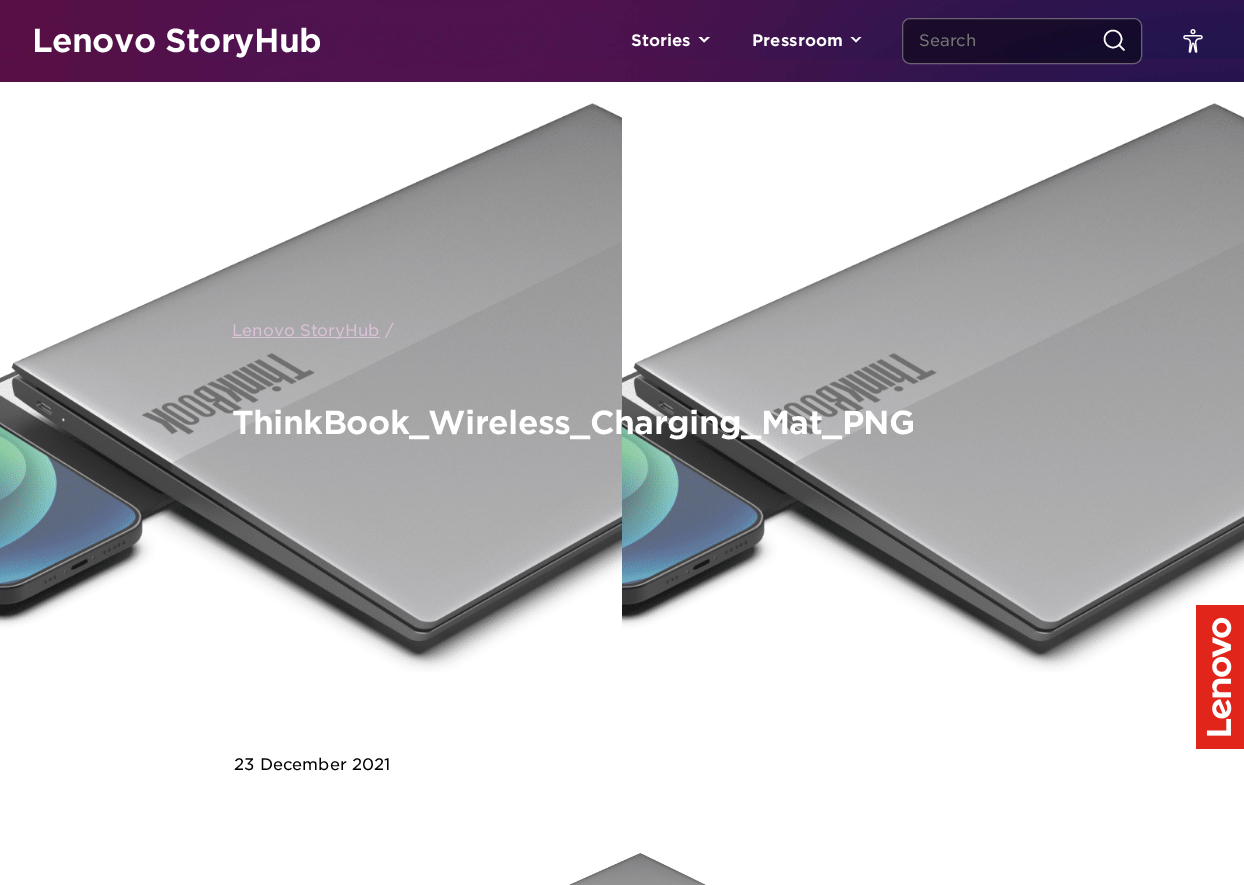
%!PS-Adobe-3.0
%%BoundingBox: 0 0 1244 885
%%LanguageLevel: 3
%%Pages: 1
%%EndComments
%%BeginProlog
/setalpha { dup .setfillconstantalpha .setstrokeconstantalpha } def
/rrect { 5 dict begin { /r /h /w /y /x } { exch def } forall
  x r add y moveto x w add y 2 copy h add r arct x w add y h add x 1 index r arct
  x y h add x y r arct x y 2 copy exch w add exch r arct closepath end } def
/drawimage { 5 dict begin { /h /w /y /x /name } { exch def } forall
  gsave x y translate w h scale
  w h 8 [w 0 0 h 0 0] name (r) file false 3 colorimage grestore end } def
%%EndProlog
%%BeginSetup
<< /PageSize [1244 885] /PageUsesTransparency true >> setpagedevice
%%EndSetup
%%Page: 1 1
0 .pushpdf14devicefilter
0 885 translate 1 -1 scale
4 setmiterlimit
1 setgray
0 0 1244 885 rectfill
(images/1.raw) 0 0 1244 82 drawimage
newpath 710 37 moveto 704 42.5 lineto 704 40 lineto 707 37 lineto closepath 704 42.5 moveto 698.5 37 lineto 701.5 37 lineto 704 40 lineto closepath fill
newpath 861.5 37 moveto 856 42.5 lineto 856 40 lineto 859 37 lineto closepath 856 42.5 moveto 850.5 37 lineto 853 37 lineto 856 40 lineto closepath fill
0.45 setalpha
0 setgray
902 18 240 46 8 rrect fill
0.35 setalpha
1 setgray
902.5 18.5 239 45 7.5 rrect stroke
1 setalpha
1.5 setlinewidth
newpath 1113 39 8.5 0 360 arc closepath stroke
1 setlinecap
1 setlinejoin
newpath 1124 50 moveto 1119 45 lineto stroke
(images/2.raw) 1183 29 20 24 drawimage
(images/3.raw) 0 103 622 569 drawimage
(images/3.raw) 622 103 622 569 drawimage
0.851 0.757 0.847 setrgbcolor
232 337 148 1 rectfill
(images/4.raw) 568 852 139 33 drawimage
0.882 0.145 0.106 setrgbcolor
1196 605 48 144 rectfill
(images/5.raw) 1206 617 26 119 drawimage
/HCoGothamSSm-Bold [32 0 0 -32 0 0] selectfont
1 setgray
32 52 moveto -0.65 0 (Lenovo StoryHub) ashow
/HCoGothamSSm-Bold [16 0 0 -16 0 0] selectfont
631 46 moveto (Stories) show
752 46 moveto (Pressroom) show
/HCoGothamSSm-Regular [16 0 0 -16 0 0] selectfont
0.459 setgray
919 46 moveto (Search) show
0.851 0.757 0.847 setrgbcolor
232 336 moveto (Lenovo StoryHub) show
385 336 moveto (/) show
/HCoGothamSSm-Bold [32 0 0 -32 0 0] selectfont
1 setgray
232 434 moveto -0.65 0 (ThinkBook_Wireless_Charging_Mat_PNG) ashow
/HCoGothamSSm-Regular [16 0 0 -16 0 0] selectfont
0 setgray
234 770 moveto (23 December 2021) show
.poppdf14devicefilter showpage
%%EOF
